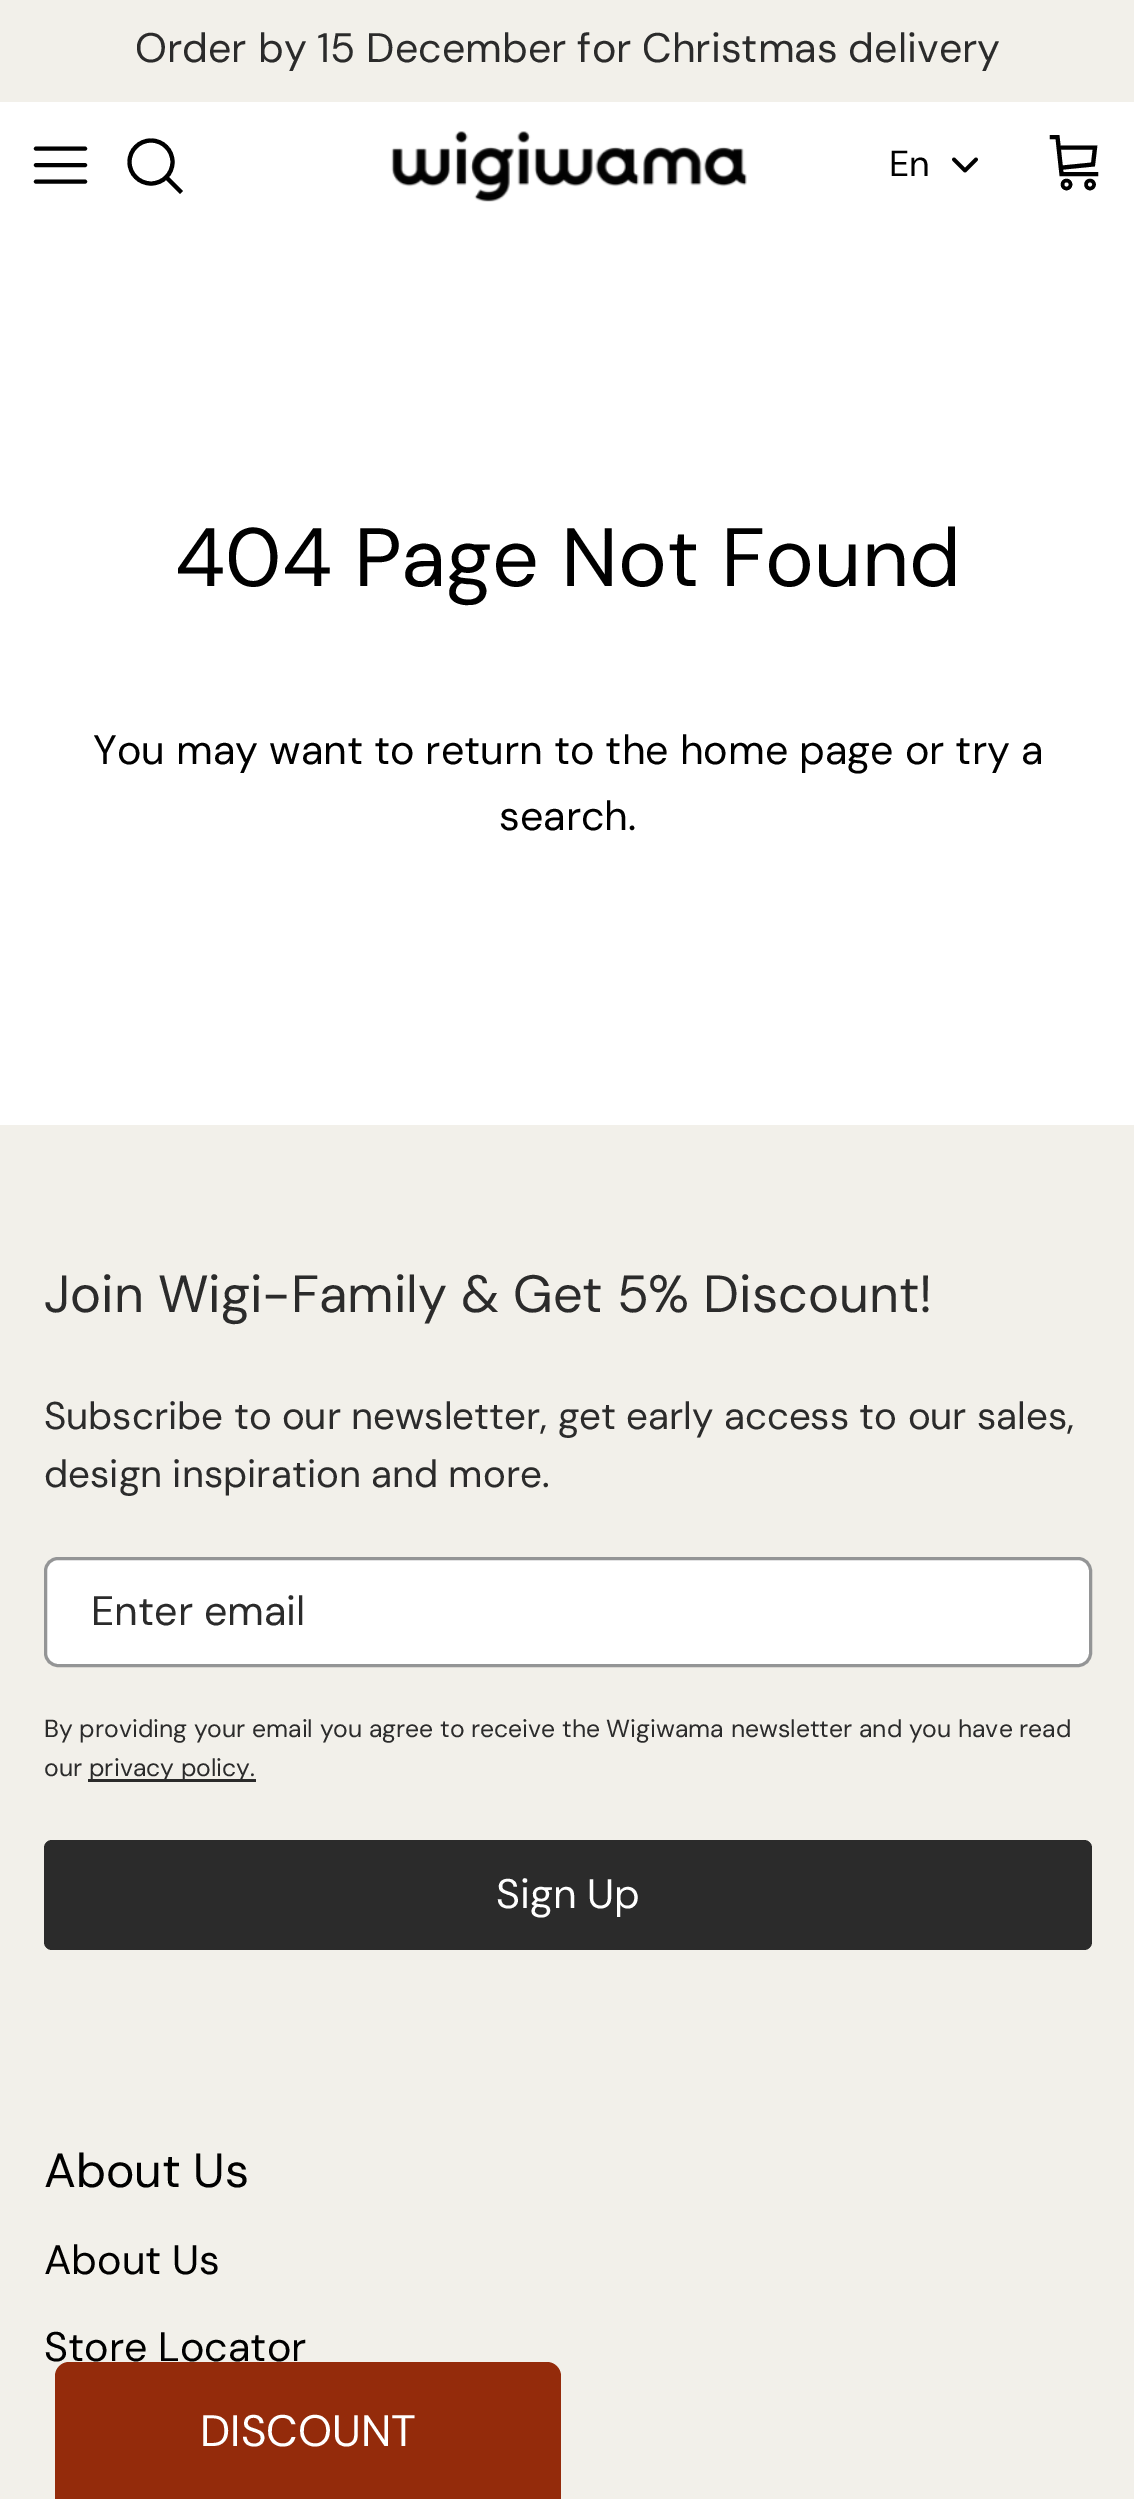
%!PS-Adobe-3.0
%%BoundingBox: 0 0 1134 2499
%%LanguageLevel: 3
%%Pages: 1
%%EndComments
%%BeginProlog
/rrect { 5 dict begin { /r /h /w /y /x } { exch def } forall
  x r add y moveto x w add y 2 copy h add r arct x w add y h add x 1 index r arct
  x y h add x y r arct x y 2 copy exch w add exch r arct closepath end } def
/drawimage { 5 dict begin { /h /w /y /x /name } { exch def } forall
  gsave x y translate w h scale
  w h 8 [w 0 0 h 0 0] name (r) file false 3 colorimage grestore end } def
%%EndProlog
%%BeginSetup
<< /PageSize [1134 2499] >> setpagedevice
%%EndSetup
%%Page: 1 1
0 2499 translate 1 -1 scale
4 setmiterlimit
1 setgray
0 0 1134 2499 rectfill
0.949 0.941 0.918 setrgbcolor
0 0 1134 102 rectfill
0 setgray
4.1 setlinewidth
1 setlinecap
1 setlinejoin
newpath 36 165 moveto 85 165 lineto 36 148.5 moveto 85 148.5 lineto 36 181.5 moveto 85 181.5 lineto stroke
0 setlinecap
0 setlinejoin
newpath 151 162 21.5 0 360 arc closepath stroke
2 setlinecap
newpath 167.5 178.5 moveto 180 191 lineto stroke
(images/1.raw) 391 131 356 71 drawimage
3.7 setlinewidth
1 setlinecap
1 setlinejoin
newpath 954 159.5 moveto 965 170.5 lineto 976 159.5 lineto stroke
4.1 setlinewidth
2 setlinecap
0 setlinejoin
newpath 1052 137 moveto 1057.5 137 lineto 1061.5 174 lineto 1096 174 lineto 1059.5 147.5 moveto 1095 147.5 lineto 1093 164.5 lineto 1063 167.5 lineto stroke
3.4 setlinewidth
0 setlinecap
newpath 1066.5 184.5 4 0 360 arc closepath stroke
newpath 1090 184.5 4 0 360 arc closepath stroke
0.949 0.941 0.918 setrgbcolor
0 1125 1134 1374 rectfill
1 setgray
45.5 1558.5 1045 107 12.5 rrect gsave fill grestore
0.58 0.584 0.588 setrgbcolor
3 setlinewidth
stroke
0.169 setgray
88 1779 168 3 rectfill
44 1840 1048 110 8 rrect fill
0.58 0.169 0.043 setrgbcolor
newpath 69 2362 moveto 547 2362 lineto 554.5 2362 561 2368.5 561 2376 curveto 561 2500 lineto 55 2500 lineto 55 2376 lineto 55 2368.5 61.5 2362 69 2362 curveto closepath fill
/DMSans-Regular [41.25 0 0 -41.25 0 0] selectfont
0.169 setgray
135 62 moveto (Order by 15 December for Christmas delivery) show
/DMSans-Regular [36 0 0 -36 0 0] selectfont
0 setgray
889 176 moveto (En) show
/DMSans-Regular [82.5 0 0 -82.5 0 0] selectfont
175 586 moveto (404 Page Not Found) show
/DMSans-Regular [41.25 0 0 -41.25 0 0] selectfont
93 764 moveto (You may want to return to the home page or try a) show
499 830 moveto (search.) show
/DMSans-Regular [52.25 0 0 -52.25 0 0] selectfont
0.169 setgray
44 1312 moveto (Join Wigi-Family & Get 5% Discount!) show
/DMSans-Regular [38.5 0 0 -38.5 0 0] selectfont
44 1429 moveto (Subscribe to our newsletter, get early access to our sales,) show
44 1487 moveto (design inspiration and more.) show
/DMSans-Regular [41.25 0 0 -41.25 0 0] selectfont
91 1625 moveto (Enter email) show
/DMSans-Regular [24.75 0 0 -24.75 0 0] selectfont
44 1737 moveto (By providing your email you agree to receive the Wigiwama newsletter and you have read) show
44 1776 moveto (our) show
89 1776 moveto (privacy policy.) show
/DMSans-Regular [41.25 0 0 -41.25 0 0] selectfont
1 setgray
496 1908 moveto (Sign Up) show
/DMSans-Regular [48 0 0 -48 0 0] selectfont
0 setgray
44 2187 moveto (About Us) show
/DMSans-Regular [41.25 0 0 -41.25 0 0] selectfont
44 2274 moveto (About Us) show
44 2361 moveto (Store Locator) show
/DMSans-Regular [44 0 0 -44 0 0] selectfont
1 setgray
200 2446 moveto (DISCOUNT) show
showpage
%%EOF
